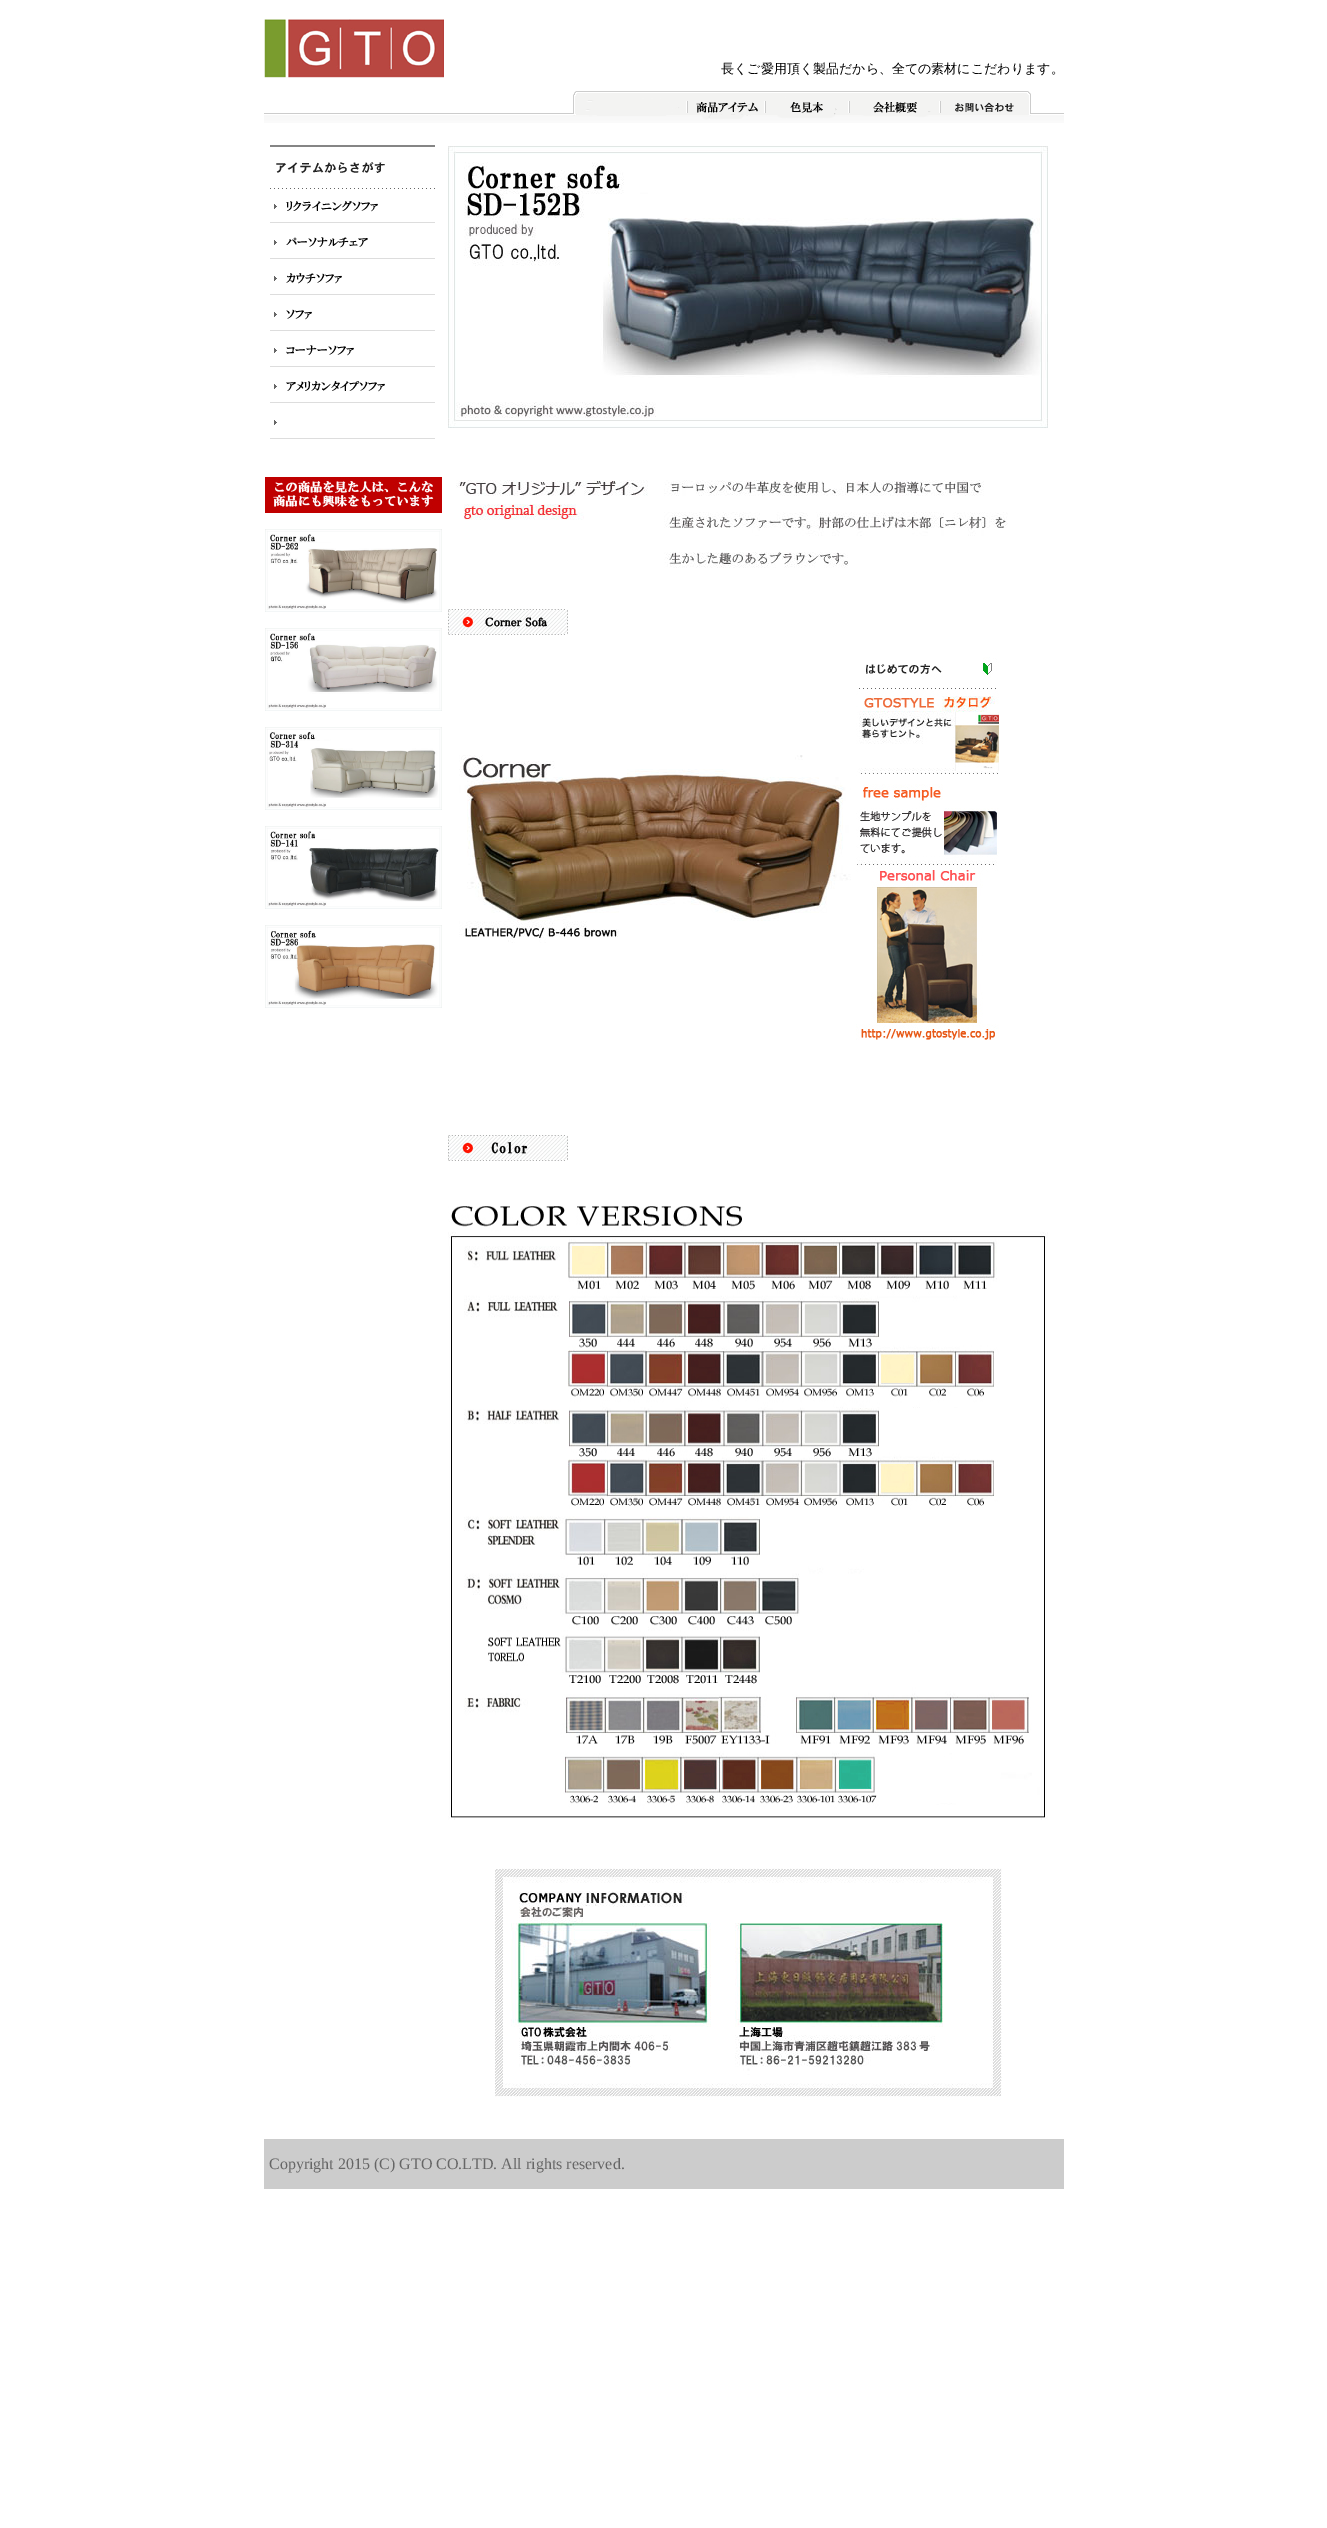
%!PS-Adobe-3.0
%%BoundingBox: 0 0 1327 2528
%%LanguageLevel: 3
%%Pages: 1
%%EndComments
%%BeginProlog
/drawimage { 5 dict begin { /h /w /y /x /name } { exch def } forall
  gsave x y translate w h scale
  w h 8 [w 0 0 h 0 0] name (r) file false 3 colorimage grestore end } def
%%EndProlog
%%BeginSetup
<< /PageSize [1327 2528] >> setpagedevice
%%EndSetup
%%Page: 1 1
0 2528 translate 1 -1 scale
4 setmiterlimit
1 setgray
0 0 1327 2528 rectfill
(images/1.raw) 264 19 180 59 drawimage
(images/2.raw) 264 91 800 32 drawimage
(images/3.raw) 270 145 165 44 drawimage
(images/4.raw) 270 201 165 22 drawimage
(images/5.raw) 270 237 165 22 drawimage
(images/6.raw) 270 273 165 22 drawimage
(images/7.raw) 270 309 165 22 drawimage
(images/8.raw) 270 345 165 22 drawimage
(images/9.raw) 270 381 165 22 drawimage
(images/10.raw) 270 420 165 19 drawimage
(images/11.raw) 265 477 177 36 drawimage
(images/12.raw) 265 529 177 83 drawimage
(images/13.raw) 265 628 177 83 drawimage
(images/14.raw) 265 727 177 83 drawimage
(images/15.raw) 265 826 177 83 drawimage
(images/16.raw) 265 925 177 83 drawimage
(images/17.raw) 448 146 600 282 drawimage
(images/18.raw) 456 480 552 88 drawimage
(images/19.raw) 448 609 120 26 drawimage
(images/20.raw) 459 755 392 188 drawimage
(images/21.raw) 856 657 143 383 drawimage
(images/22.raw) 448 1135 120 26 drawimage
(images/23.raw) 448 1206 600 614 drawimage
(images/24.raw) 495 1868 507 229 drawimage
0.8 setgray
264 2139 800 50 rectfill
/WenQuanYiZenHei-Medium [13 0 0 -13 0 0] selectfont
0 setgray
721 73 moveto (長くご愛用頂く製品だから、全ての素材にこだわります。) show
/LiberationSerif-Regular [16 0 0 -16 0 0] selectfont
0.4 setgray
269 2169 moveto (Copyright 2015 \(C\) GTO CO.LTD. All rights reserved.) show
showpage
%%EOF
